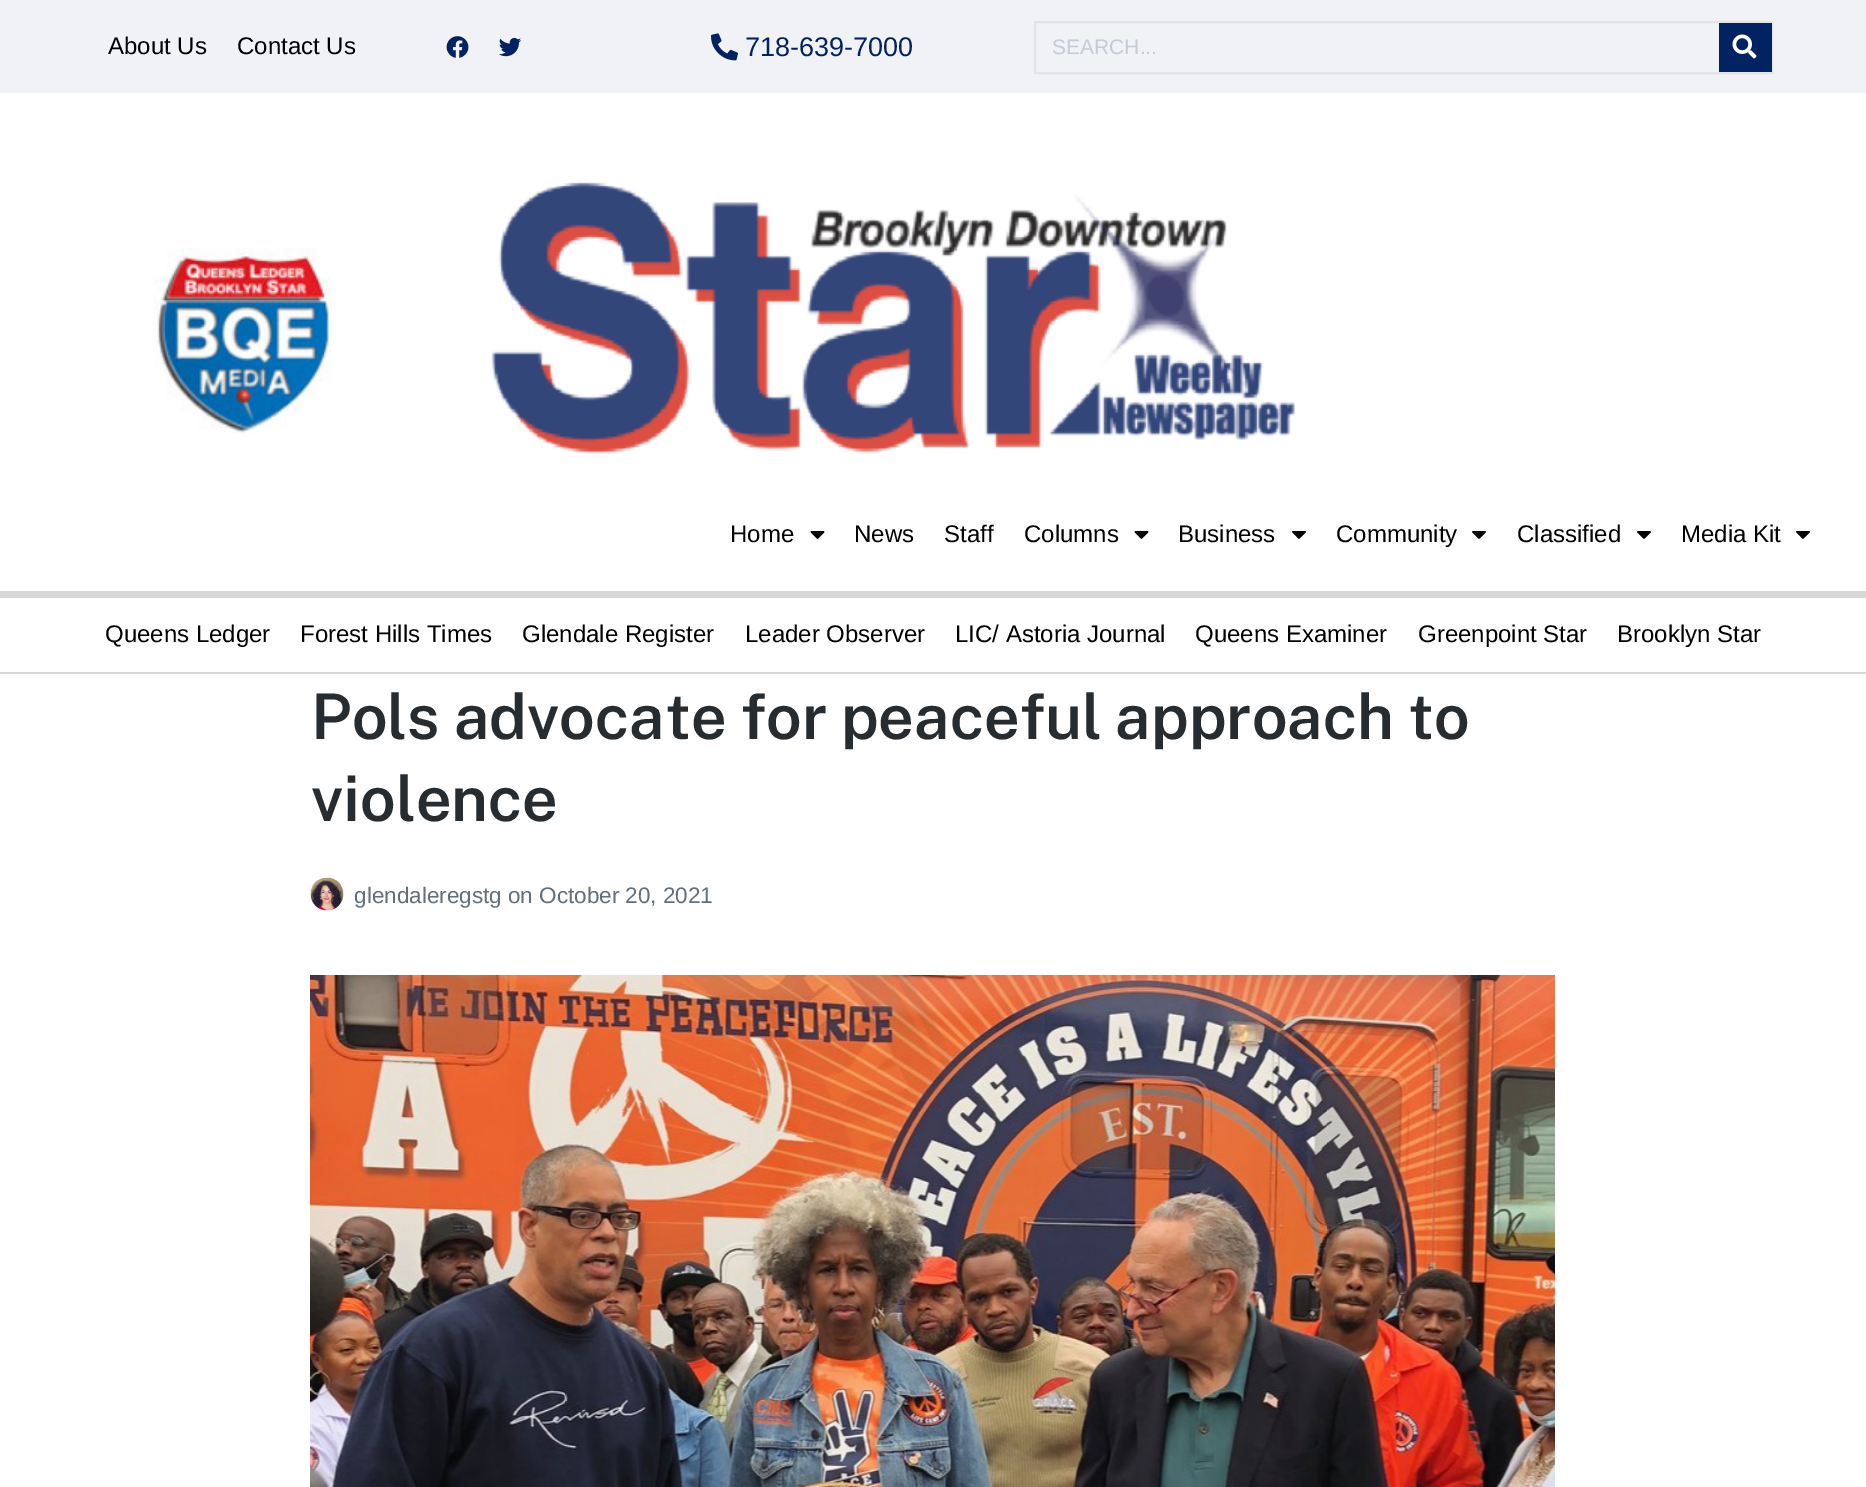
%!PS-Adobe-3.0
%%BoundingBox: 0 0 1866 1487
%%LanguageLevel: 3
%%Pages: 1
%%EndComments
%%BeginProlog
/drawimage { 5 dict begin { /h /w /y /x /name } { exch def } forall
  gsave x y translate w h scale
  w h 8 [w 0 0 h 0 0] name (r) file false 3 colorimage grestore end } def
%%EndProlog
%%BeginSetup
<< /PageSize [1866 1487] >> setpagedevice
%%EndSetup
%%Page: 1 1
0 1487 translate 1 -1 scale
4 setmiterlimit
1 setgray
0 0 1866 1487 rectfill
0.941 0.949 0.965 setrgbcolor
0 0 1866 93 rectfill
(images/1.raw) 446 36 23 22 drawimage
(images/2.raw) 499 37 23 20 drawimage
(images/3.raw) 711 33 27 28 drawimage
0.89 setgray
2 setlinewidth
1035 22 737 51 rectstroke
0.008 0.137 0.38 setrgbcolor
1719 23 53 49 rectfill
(images/4.raw) 1732 34 25 25 drawimage
(images/5.raw) 153 247 179 187 drawimage
(images/6.raw) 491 182 804 273 drawimage
(images/7.raw) 810 531 15 8 drawimage
(images/7.raw) 1134 531 15 8 drawimage
(images/8.raw) 1292 531 14 8 drawimage
(images/8.raw) 1472 531 14 8 drawimage
(images/8.raw) 1637 531 14 8 drawimage
(images/8.raw) 1796 531 14 8 drawimage
0.847 setgray
0 591 1866 7 rectfill
0 672 1866 2 rectfill
(images/9.raw) 310 877 34 34 drawimage
(images/10.raw) 310 975 1245 512 drawimage
/LiberationSans-Regular [24 0 0 -24 0 0] selectfont
0 setgray
108 54 moveto (About Us) show
237 54 moveto (Contact Us) show
/LiberationSans-Regular [27 0 0 -27 0 0] selectfont
0.008 0.137 0.38 setrgbcolor
745 56 moveto (718-639-7000) show
/LiberationSans-Regular [21 0 0 -21 0 0] selectfont
0.769 0.796 0.839 setrgbcolor
1052 54 moveto (SEARCH...) show
/LiberationSans-Regular [24 0 0 -24 0 0] selectfont
0 setgray
730 542 moveto (Home) show
854 542 moveto (News) show
944 542 moveto (Staff) show
1024 542 moveto (Columns) show
1178 542 moveto (Business) show
1336 542 moveto (Community) show
1517 542 moveto (Classified) show
1681 542 moveto (Media Kit) show
105 642 moveto (Queens Ledger) show
300 642 moveto (Forest Hills Times) show
522 642 moveto (Glendale Register) show
745 642 moveto (Leader Observer) show
955 642 moveto (LIC/ Astoria Journal) show
1195 642 moveto (Queens Examiner) show
1418 642 moveto (Greenpoint Star) show
1617 642 moveto (Brooklyn Star) show
/PublicSans-SemiBold [63 0 0 -63 0 0] selectfont
0.153 0.173 0.188 setrgbcolor
311 739 moveto (Pols advocate for peaceful approach to) show
311 821 moveto (violence) show
/LiberationSans-Regular [22.5 0 0 -22.5 0 0] selectfont
0.384 0.439 0.486 setrgbcolor
354 903 moveto (glendaleregstg on October 20, 2021) show
showpage
%%EOF
